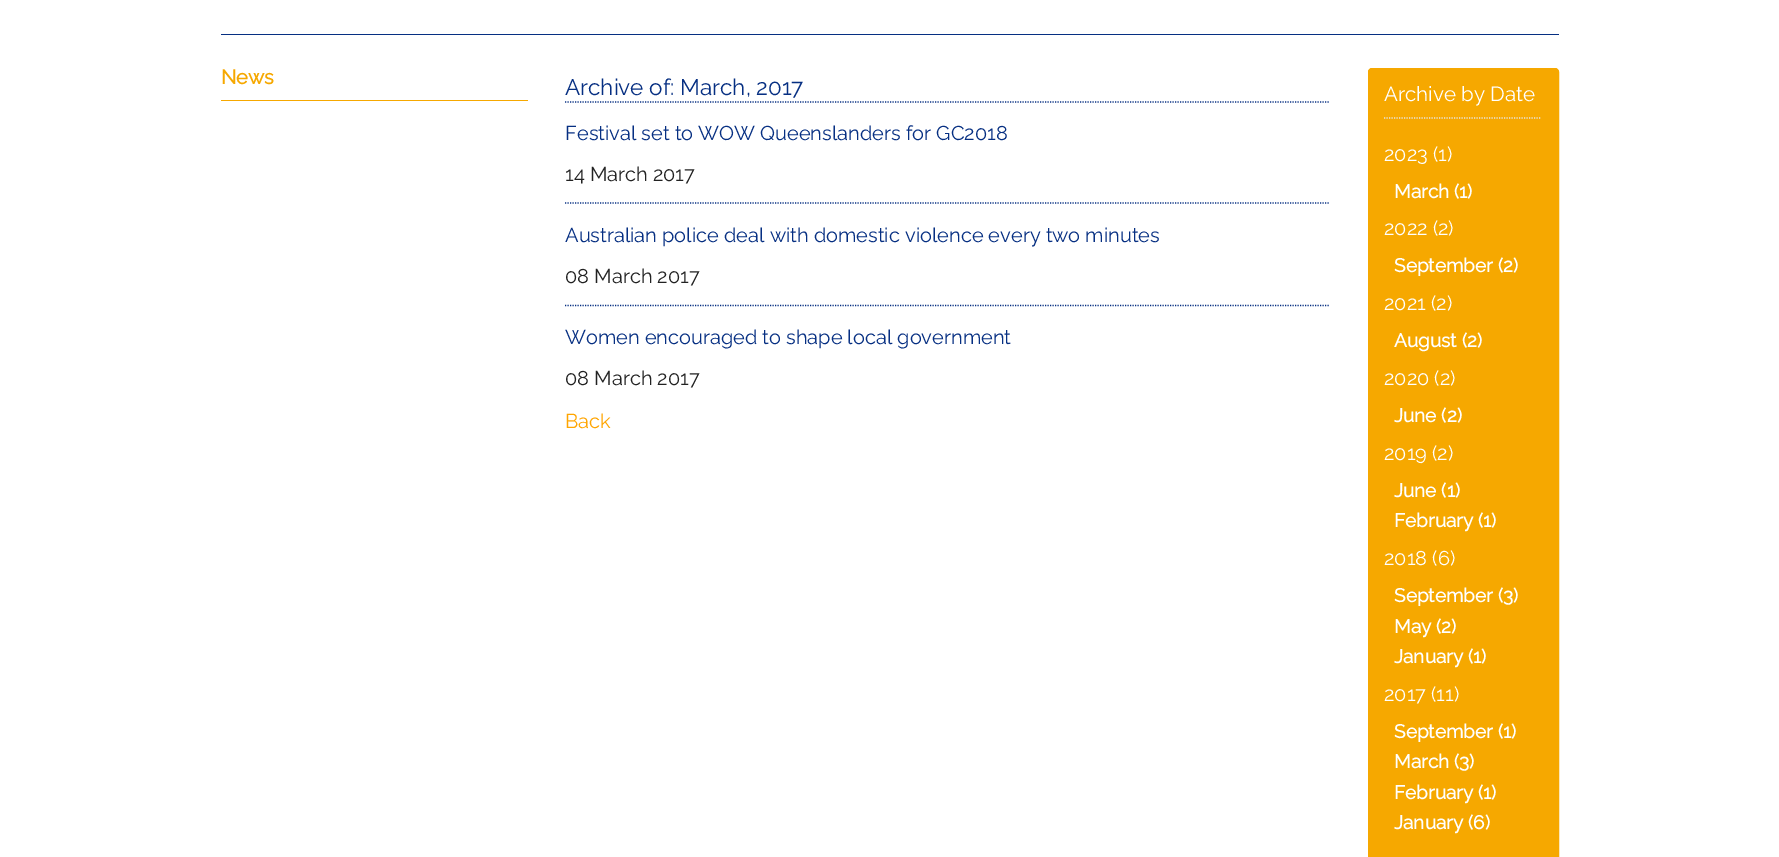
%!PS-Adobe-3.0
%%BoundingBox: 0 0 1779 857
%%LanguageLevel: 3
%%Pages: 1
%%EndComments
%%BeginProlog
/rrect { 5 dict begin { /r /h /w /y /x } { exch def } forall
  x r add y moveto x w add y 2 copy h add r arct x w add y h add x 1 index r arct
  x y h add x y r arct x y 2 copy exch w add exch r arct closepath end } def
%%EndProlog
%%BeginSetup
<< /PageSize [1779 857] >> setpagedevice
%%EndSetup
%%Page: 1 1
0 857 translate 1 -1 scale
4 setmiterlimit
1 setgray
0 0 1779 857 rectfill
0.024 0.184 0.51 setrgbcolor
221 34 1338 1 rectfill
0.965 0.659 0 setrgbcolor
221 100 307 1 rectfill
0.024 0.184 0.51 setrgbcolor
1.2 setlinewidth
[1.25 1.25] 0 setdash
newpath 565 102 moveto 1330 102 lineto stroke
newpath 565 203 moveto 1330 203 lineto stroke
newpath 565 305.5 moveto 1330 305.5 lineto stroke
0.965 0.659 0 setrgbcolor
1368.5 68.5 190 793 3.5 rrect gsave fill grestore
1 setlinewidth
[] 0 setdash
stroke
0.906 0.902 0.906 setrgbcolor
1.2 setlinewidth
[1.25 1.25] 0 setdash
newpath 1384 118 moveto 1541 118 lineto stroke
/Raleway-Bold [20 0 0 -20 0 0] selectfont
0.965 0.659 0 setrgbcolor
221 84 moveto (News) show
/Raleway-Regular [22.5 0 0 -22.5 0 0] selectfont
0.024 0.184 0.51 setrgbcolor
565 95 moveto (Archive of: March, 2017) show
/Raleway-Regular [20 0 0 -20 0 0] selectfont
565 140 moveto (Festival set to WOW Queenslanders for GC2018) show
0.133 setgray
565 181 moveto (14 March 2017) show
0.024 0.184 0.51 setrgbcolor
565 242 moveto (Australian police deal with domestic violence every two minutes) show
0.133 setgray
565 283 moveto (08 March 2017) show
0.024 0.184 0.51 setrgbcolor
565 344 moveto (Women encouraged to shape local government) show
0.133 setgray
565 385 moveto (08 March 2017) show
1 0.647 0 setrgbcolor
565 428 moveto (Back) show
/Raleway-Regular [20.5 0 0 -20.5 0 0] selectfont
1 setgray
1384 101 moveto (Archive by Date) show
/Raleway-Regular [20 0 0 -20 0 0] selectfont
1384 161 moveto (2023 \(1\)) show
/Raleway-Bold [19 0 0 -19 0 0] selectfont
1394 198 moveto (March \(1\)) show
/Raleway-Regular [20 0 0 -20 0 0] selectfont
1384 235 moveto (2022 \(2\)) show
/Raleway-Bold [19 0 0 -19 0 0] selectfont
1394 272 moveto (September \(2\)) show
/Raleway-Regular [20 0 0 -20 0 0] selectfont
1384 310 moveto (2021 \(2\)) show
/Raleway-Bold [19 0 0 -19 0 0] selectfont
1394 347 moveto (August \(2\)) show
/Raleway-Regular [20 0 0 -20 0 0] selectfont
1384 385 moveto (2020 \(2\)) show
/Raleway-Bold [19 0 0 -19 0 0] selectfont
1394 422 moveto (June \(2\)) show
/Raleway-Regular [20 0 0 -20 0 0] selectfont
1384 460 moveto (2019 \(2\)) show
/Raleway-Bold [19 0 0 -19 0 0] selectfont
1394 497 moveto (June \(1\)) show
1394 527 moveto (February \(1\)) show
/Raleway-Regular [20 0 0 -20 0 0] selectfont
1384 565 moveto (2018 \(6\)) show
/Raleway-Bold [19 0 0 -19 0 0] selectfont
1394 602 moveto (September \(3\)) show
1394 633 moveto (May \(2\)) show
1394 663 moveto (January \(1\)) show
/Raleway-Regular [20 0 0 -20 0 0] selectfont
1384 701 moveto (2017 \(11\)) show
/Raleway-Bold [19 0 0 -19 0 0] selectfont
1394 738 moveto (September \(1\)) show
1394 768 moveto (March \(3\)) show
1394 799 moveto (February \(1\)) show
1394 829 moveto (January \(6\)) show
showpage
%%EOF
